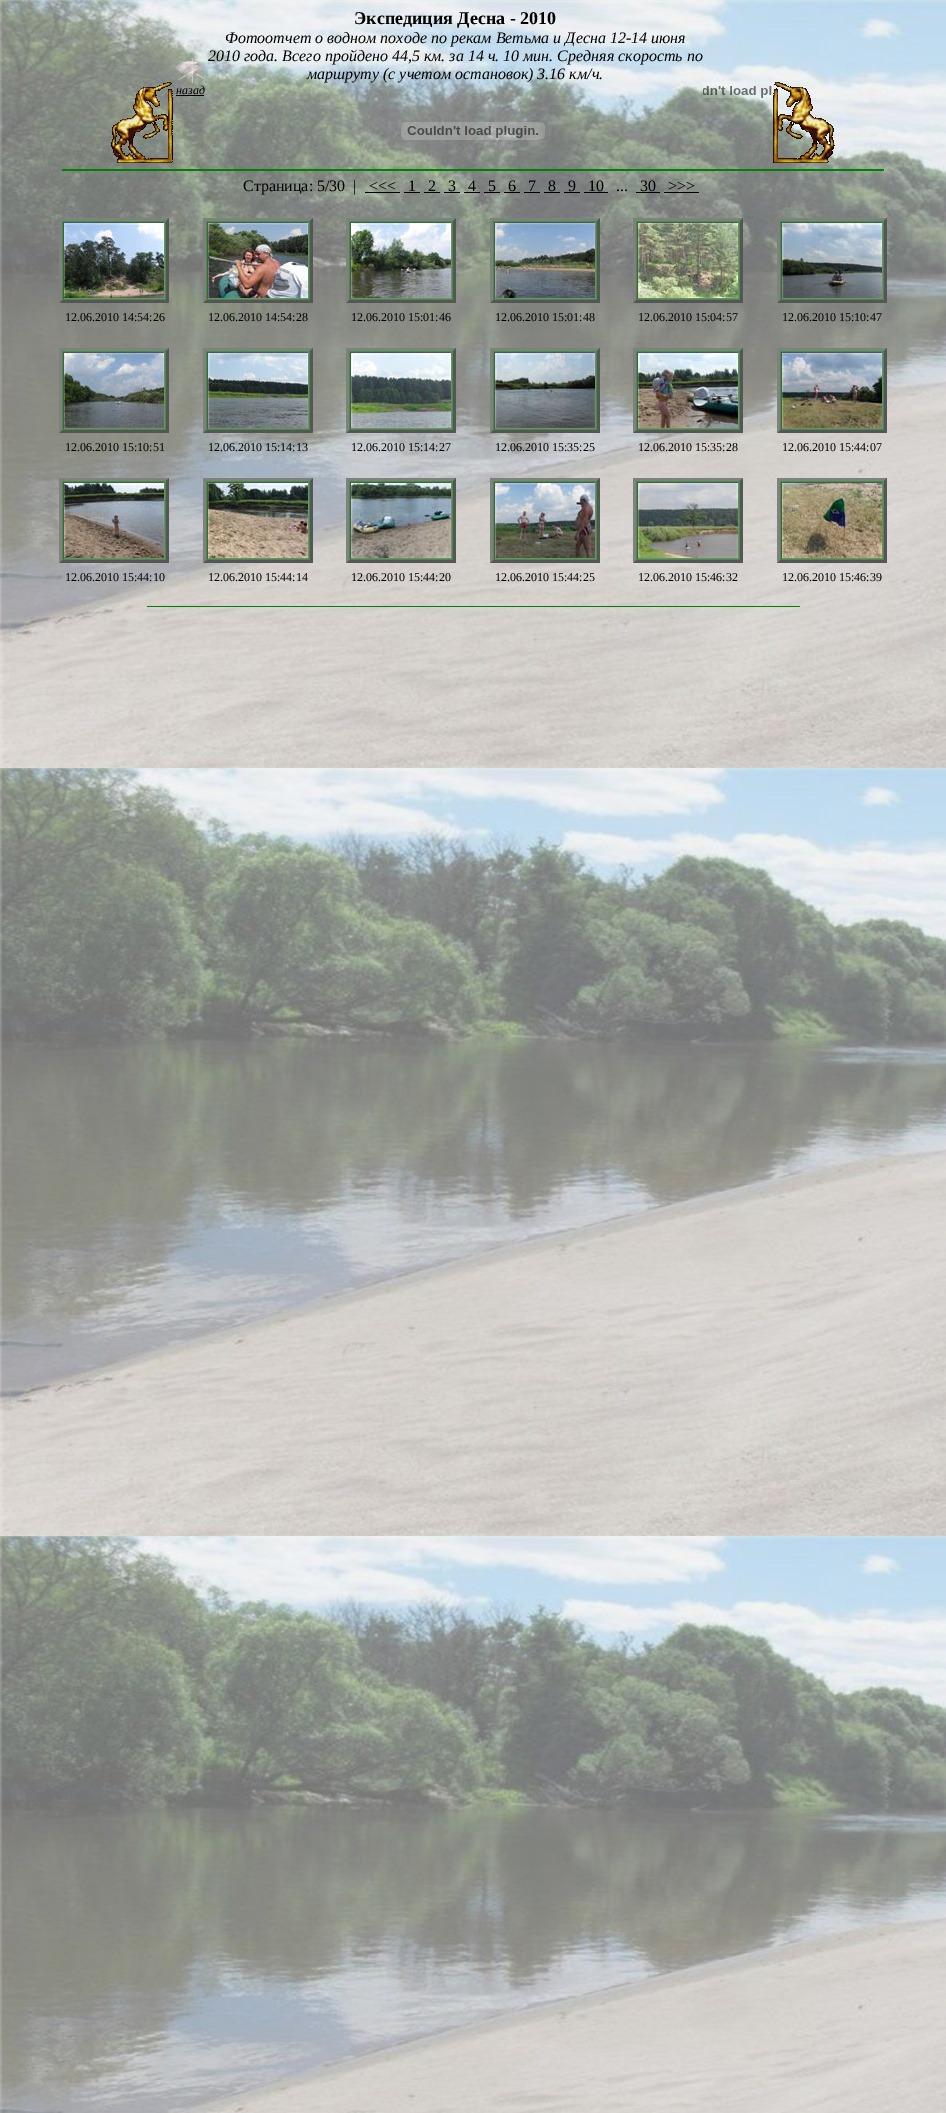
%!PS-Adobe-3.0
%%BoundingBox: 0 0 946 2113
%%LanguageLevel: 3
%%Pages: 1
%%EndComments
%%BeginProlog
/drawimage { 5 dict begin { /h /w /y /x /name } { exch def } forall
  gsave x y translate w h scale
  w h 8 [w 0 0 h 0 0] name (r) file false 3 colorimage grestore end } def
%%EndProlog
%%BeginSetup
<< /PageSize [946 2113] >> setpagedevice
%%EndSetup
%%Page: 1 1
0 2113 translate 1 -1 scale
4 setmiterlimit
1 setgray
0 0 946 2113 rectfill
(images/1.raw) 0 0 946 2113 drawimage
(images/2.raw) 111 82 62 81 drawimage
(images/3.raw) 175 57 30 26 drawimage
0 setgray
176 95 28 1 rectfill
(images/4.raw) 703 82 70 16 drawimage
(images/5.raw) 773 82 62 81 drawimage
(images/6.raw) 401 122 144 18 drawimage
0 0.502 0 setrgbcolor
62 169 822 2 rectfill
0 setgray
365 192 35 1 rectfill
404 192 16 1 rectfill
424 192 16 1 rectfill
444 192 16 1 rectfill
464 192 16 1 rectfill
484 192 16 1 rectfill
504 192 16 1 rectfill
524 192 16 1 rectfill
544 192 16 1 rectfill
564 192 16 1 rectfill
584 192 24 1 rectfill
636 192 24 1 rectfill
664 192 35 1 rectfill
0.2 0.6 0.2 setrgbcolor
59 218 110 85 rectfill
0.502 setgray
newpath 59 218 moveto 169 218 lineto 166 221 lineto 62 221 lineto closepath fill
0.333 setgray
newpath 169 218 moveto 169 303 lineto 166 300 lineto 166 221 lineto closepath fill
newpath 169 303 moveto 59 303 lineto 62 300 lineto 166 300 lineto closepath fill
0.502 setgray
newpath 59 303 moveto 59 218 lineto 62 221 lineto 62 300 lineto closepath fill
0.333 setgray
63 222 102 1 rectfill
0.502 setgray
164 222 1 77 rectfill
63 298 102 1 rectfill
0.333 setgray
63 222 1 77 rectfill
(images/7.raw) 64 223 100 75 drawimage
0.2 0.6 0.2 setrgbcolor
203 218 110 85 rectfill
0.502 setgray
newpath 203 218 moveto 313 218 lineto 310 221 lineto 206 221 lineto closepath fill
0.333 setgray
newpath 313 218 moveto 313 303 lineto 310 300 lineto 310 221 lineto closepath fill
newpath 313 303 moveto 203 303 lineto 206 300 lineto 310 300 lineto closepath fill
0.502 setgray
newpath 203 303 moveto 203 218 lineto 206 221 lineto 206 300 lineto closepath fill
0.333 setgray
207 222 102 1 rectfill
0.502 setgray
308 222 1 77 rectfill
207 298 102 1 rectfill
0.333 setgray
207 222 1 77 rectfill
(images/8.raw) 208 223 100 75 drawimage
0.2 0.6 0.2 setrgbcolor
346 218 110 85 rectfill
0.502 setgray
newpath 346 218 moveto 456 218 lineto 453 221 lineto 349 221 lineto closepath fill
0.333 setgray
newpath 456 218 moveto 456 303 lineto 453 300 lineto 453 221 lineto closepath fill
newpath 456 303 moveto 346 303 lineto 349 300 lineto 453 300 lineto closepath fill
0.502 setgray
newpath 346 303 moveto 346 218 lineto 349 221 lineto 349 300 lineto closepath fill
0.333 setgray
350 222 102 1 rectfill
0.502 setgray
451 222 1 77 rectfill
350 298 102 1 rectfill
0.333 setgray
350 222 1 77 rectfill
(images/9.raw) 351 223 100 75 drawimage
0.2 0.6 0.2 setrgbcolor
490 218 110 85 rectfill
0.502 setgray
newpath 490 218 moveto 600 218 lineto 597 221 lineto 493 221 lineto closepath fill
0.333 setgray
newpath 600 218 moveto 600 303 lineto 597 300 lineto 597 221 lineto closepath fill
newpath 600 303 moveto 490 303 lineto 493 300 lineto 597 300 lineto closepath fill
0.502 setgray
newpath 490 303 moveto 490 218 lineto 493 221 lineto 493 300 lineto closepath fill
0.333 setgray
494 222 102 1 rectfill
0.502 setgray
595 222 1 77 rectfill
494 298 102 1 rectfill
0.333 setgray
494 222 1 77 rectfill
(images/10.raw) 495 223 100 75 drawimage
0.2 0.6 0.2 setrgbcolor
633 218 110 85 rectfill
0.502 setgray
newpath 633 218 moveto 743 218 lineto 740 221 lineto 636 221 lineto closepath fill
0.333 setgray
newpath 743 218 moveto 743 303 lineto 740 300 lineto 740 221 lineto closepath fill
newpath 743 303 moveto 633 303 lineto 636 300 lineto 740 300 lineto closepath fill
0.502 setgray
newpath 633 303 moveto 633 218 lineto 636 221 lineto 636 300 lineto closepath fill
0.333 setgray
637 222 102 1 rectfill
0.502 setgray
738 222 1 77 rectfill
637 298 102 1 rectfill
0.333 setgray
637 222 1 77 rectfill
(images/11.raw) 638 223 100 75 drawimage
0.2 0.6 0.2 setrgbcolor
777 218 110 85 rectfill
0.502 setgray
newpath 777 218 moveto 887 218 lineto 884 221 lineto 780 221 lineto closepath fill
0.333 setgray
newpath 887 218 moveto 887 303 lineto 884 300 lineto 884 221 lineto closepath fill
newpath 887 303 moveto 777 303 lineto 780 300 lineto 884 300 lineto closepath fill
0.502 setgray
newpath 777 303 moveto 777 218 lineto 780 221 lineto 780 300 lineto closepath fill
0.333 setgray
781 222 102 1 rectfill
0.502 setgray
882 222 1 77 rectfill
781 298 102 1 rectfill
0.333 setgray
781 222 1 77 rectfill
(images/12.raw) 782 223 100 75 drawimage
0.2 0.6 0.2 setrgbcolor
59 348 110 85 rectfill
0.502 setgray
newpath 59 348 moveto 169 348 lineto 166 351 lineto 62 351 lineto closepath fill
0.333 setgray
newpath 169 348 moveto 169 433 lineto 166 430 lineto 166 351 lineto closepath fill
newpath 169 433 moveto 59 433 lineto 62 430 lineto 166 430 lineto closepath fill
0.502 setgray
newpath 59 433 moveto 59 348 lineto 62 351 lineto 62 430 lineto closepath fill
0.333 setgray
63 352 102 1 rectfill
0.502 setgray
164 352 1 77 rectfill
63 428 102 1 rectfill
0.333 setgray
63 352 1 77 rectfill
(images/13.raw) 64 353 100 75 drawimage
0.2 0.6 0.2 setrgbcolor
203 348 110 85 rectfill
0.502 setgray
newpath 203 348 moveto 313 348 lineto 310 351 lineto 206 351 lineto closepath fill
0.333 setgray
newpath 313 348 moveto 313 433 lineto 310 430 lineto 310 351 lineto closepath fill
newpath 313 433 moveto 203 433 lineto 206 430 lineto 310 430 lineto closepath fill
0.502 setgray
newpath 203 433 moveto 203 348 lineto 206 351 lineto 206 430 lineto closepath fill
0.333 setgray
207 352 102 1 rectfill
0.502 setgray
308 352 1 77 rectfill
207 428 102 1 rectfill
0.333 setgray
207 352 1 77 rectfill
(images/14.raw) 208 353 100 75 drawimage
0.2 0.6 0.2 setrgbcolor
346 348 110 85 rectfill
0.502 setgray
newpath 346 348 moveto 456 348 lineto 453 351 lineto 349 351 lineto closepath fill
0.333 setgray
newpath 456 348 moveto 456 433 lineto 453 430 lineto 453 351 lineto closepath fill
newpath 456 433 moveto 346 433 lineto 349 430 lineto 453 430 lineto closepath fill
0.502 setgray
newpath 346 433 moveto 346 348 lineto 349 351 lineto 349 430 lineto closepath fill
0.333 setgray
350 352 102 1 rectfill
0.502 setgray
451 352 1 77 rectfill
350 428 102 1 rectfill
0.333 setgray
350 352 1 77 rectfill
(images/15.raw) 351 353 100 75 drawimage
0.2 0.6 0.2 setrgbcolor
490 348 110 85 rectfill
0.502 setgray
newpath 490 348 moveto 600 348 lineto 597 351 lineto 493 351 lineto closepath fill
0.333 setgray
newpath 600 348 moveto 600 433 lineto 597 430 lineto 597 351 lineto closepath fill
newpath 600 433 moveto 490 433 lineto 493 430 lineto 597 430 lineto closepath fill
0.502 setgray
newpath 490 433 moveto 490 348 lineto 493 351 lineto 493 430 lineto closepath fill
0.333 setgray
494 352 102 1 rectfill
0.502 setgray
595 352 1 77 rectfill
494 428 102 1 rectfill
0.333 setgray
494 352 1 77 rectfill
(images/16.raw) 495 353 100 75 drawimage
0.2 0.6 0.2 setrgbcolor
633 348 110 85 rectfill
0.502 setgray
newpath 633 348 moveto 743 348 lineto 740 351 lineto 636 351 lineto closepath fill
0.333 setgray
newpath 743 348 moveto 743 433 lineto 740 430 lineto 740 351 lineto closepath fill
newpath 743 433 moveto 633 433 lineto 636 430 lineto 740 430 lineto closepath fill
0.502 setgray
newpath 633 433 moveto 633 348 lineto 636 351 lineto 636 430 lineto closepath fill
0.333 setgray
637 352 102 1 rectfill
0.502 setgray
738 352 1 77 rectfill
637 428 102 1 rectfill
0.333 setgray
637 352 1 77 rectfill
(images/17.raw) 638 353 100 75 drawimage
0.2 0.6 0.2 setrgbcolor
777 348 110 85 rectfill
0.502 setgray
newpath 777 348 moveto 887 348 lineto 884 351 lineto 780 351 lineto closepath fill
0.333 setgray
newpath 887 348 moveto 887 433 lineto 884 430 lineto 884 351 lineto closepath fill
newpath 887 433 moveto 777 433 lineto 780 430 lineto 884 430 lineto closepath fill
0.502 setgray
newpath 777 433 moveto 777 348 lineto 780 351 lineto 780 430 lineto closepath fill
0.333 setgray
781 352 102 1 rectfill
0.502 setgray
882 352 1 77 rectfill
781 428 102 1 rectfill
0.333 setgray
781 352 1 77 rectfill
(images/18.raw) 782 353 100 75 drawimage
0.2 0.6 0.2 setrgbcolor
59 478 110 85 rectfill
0.502 setgray
newpath 59 478 moveto 169 478 lineto 166 481 lineto 62 481 lineto closepath fill
0.333 setgray
newpath 169 478 moveto 169 563 lineto 166 560 lineto 166 481 lineto closepath fill
newpath 169 563 moveto 59 563 lineto 62 560 lineto 166 560 lineto closepath fill
0.502 setgray
newpath 59 563 moveto 59 478 lineto 62 481 lineto 62 560 lineto closepath fill
0.333 setgray
63 482 102 1 rectfill
0.502 setgray
164 482 1 77 rectfill
63 558 102 1 rectfill
0.333 setgray
63 482 1 77 rectfill
(images/19.raw) 64 483 100 75 drawimage
0.2 0.6 0.2 setrgbcolor
203 478 110 85 rectfill
0.502 setgray
newpath 203 478 moveto 313 478 lineto 310 481 lineto 206 481 lineto closepath fill
0.333 setgray
newpath 313 478 moveto 313 563 lineto 310 560 lineto 310 481 lineto closepath fill
newpath 313 563 moveto 203 563 lineto 206 560 lineto 310 560 lineto closepath fill
0.502 setgray
newpath 203 563 moveto 203 478 lineto 206 481 lineto 206 560 lineto closepath fill
0.333 setgray
207 482 102 1 rectfill
0.502 setgray
308 482 1 77 rectfill
207 558 102 1 rectfill
0.333 setgray
207 482 1 77 rectfill
(images/20.raw) 208 483 100 75 drawimage
0.2 0.6 0.2 setrgbcolor
346 478 110 85 rectfill
0.502 setgray
newpath 346 478 moveto 456 478 lineto 453 481 lineto 349 481 lineto closepath fill
0.333 setgray
newpath 456 478 moveto 456 563 lineto 453 560 lineto 453 481 lineto closepath fill
newpath 456 563 moveto 346 563 lineto 349 560 lineto 453 560 lineto closepath fill
0.502 setgray
newpath 346 563 moveto 346 478 lineto 349 481 lineto 349 560 lineto closepath fill
0.333 setgray
350 482 102 1 rectfill
0.502 setgray
451 482 1 77 rectfill
350 558 102 1 rectfill
0.333 setgray
350 482 1 77 rectfill
(images/21.raw) 351 483 100 75 drawimage
0.2 0.6 0.2 setrgbcolor
490 478 110 85 rectfill
0.502 setgray
newpath 490 478 moveto 600 478 lineto 597 481 lineto 493 481 lineto closepath fill
0.333 setgray
newpath 600 478 moveto 600 563 lineto 597 560 lineto 597 481 lineto closepath fill
newpath 600 563 moveto 490 563 lineto 493 560 lineto 597 560 lineto closepath fill
0.502 setgray
newpath 490 563 moveto 490 478 lineto 493 481 lineto 493 560 lineto closepath fill
0.333 setgray
494 482 102 1 rectfill
0.502 setgray
595 482 1 77 rectfill
494 558 102 1 rectfill
0.333 setgray
494 482 1 77 rectfill
(images/22.raw) 495 483 100 75 drawimage
0.2 0.6 0.2 setrgbcolor
633 478 110 85 rectfill
0.502 setgray
newpath 633 478 moveto 743 478 lineto 740 481 lineto 636 481 lineto closepath fill
0.333 setgray
newpath 743 478 moveto 743 563 lineto 740 560 lineto 740 481 lineto closepath fill
newpath 743 563 moveto 633 563 lineto 636 560 lineto 740 560 lineto closepath fill
0.502 setgray
newpath 633 563 moveto 633 478 lineto 636 481 lineto 636 560 lineto closepath fill
0.333 setgray
637 482 102 1 rectfill
0.502 setgray
738 482 1 77 rectfill
637 558 102 1 rectfill
0.333 setgray
637 482 1 77 rectfill
(images/23.raw) 638 483 100 75 drawimage
0.2 0.6 0.2 setrgbcolor
777 478 110 85 rectfill
0.502 setgray
newpath 777 478 moveto 887 478 lineto 884 481 lineto 780 481 lineto closepath fill
0.333 setgray
newpath 887 478 moveto 887 563 lineto 884 560 lineto 884 481 lineto closepath fill
newpath 887 563 moveto 777 563 lineto 780 560 lineto 884 560 lineto closepath fill
0.502 setgray
newpath 777 563 moveto 777 478 lineto 780 481 lineto 780 560 lineto closepath fill
0.333 setgray
781 482 102 1 rectfill
0.502 setgray
882 482 1 77 rectfill
781 558 102 1 rectfill
0.333 setgray
781 482 1 77 rectfill
(images/24.raw) 782 483 100 75 drawimage
0 0.502 0 setrgbcolor
147 606 653 1 rectfill
/LiberationSerif-Bold [18 0 0 -18 0 0] selectfont
0 setgray
354 24 moveto (Экспедиция Десна - 2010) show
/LiberationSerif-Italic [12 0 0 -12 0 0] selectfont
176 94 moveto (назад) show
/LiberationSerif-Italic [16 0 0 -16 0 0] selectfont
225 43 moveto (Фотоотчет о водном походе по рекам Ветьма и Десна 12-14 июня) show
208 61 moveto (2010 года. Всего пройдено 44,5 км. за 14 ч. 10 мин. Средняя скорость по) show
307 79 moveto (маршруту \(с учетом остановок\) 3.16 км/ч.) show
/LiberationSerif-Regular [16 0 0 -16 0 0] selectfont
243 191 moveto (Страница: 5/30  |) show
369 191 moveto (<<<) show
408 191 moveto (1) show
428 191 moveto (2) show
448 191 moveto (3) show
468 191 moveto (4) show
488 191 moveto (5) show
508 191 moveto (6) show
528 191 moveto (7) show
548 191 moveto (8) show
568 191 moveto (9) show
588 191 moveto (10) show
640 191 moveto (30) show
668 191 moveto (>>>) show
616 191 moveto (...) show
/LiberationSerif-Regular [12 0 0 -12 0 0] selectfont
65 321 moveto (12.06.2010 14:54:26) show
208 321 moveto (12.06.2010 14:54:28) show
351 321 moveto (12.06.2010 15:01:46) show
495 321 moveto (12.06.2010 15:01:48) show
638 321 moveto (12.06.2010 15:04:57) show
782 321 moveto (12.06.2010 15:10:47) show
65 451 moveto (12.06.2010 15:10:51) show
208 451 moveto (12.06.2010 15:14:13) show
351 451 moveto (12.06.2010 15:14:27) show
495 451 moveto (12.06.2010 15:35:25) show
638 451 moveto (12.06.2010 15:35:28) show
782 451 moveto (12.06.2010 15:44:07) show
65 581 moveto (12.06.2010 15:44:10) show
208 581 moveto (12.06.2010 15:44:14) show
351 581 moveto (12.06.2010 15:44:20) show
495 581 moveto (12.06.2010 15:44:25) show
638 581 moveto (12.06.2010 15:46:32) show
782 581 moveto (12.06.2010 15:46:39) show
showpage
%%EOF
